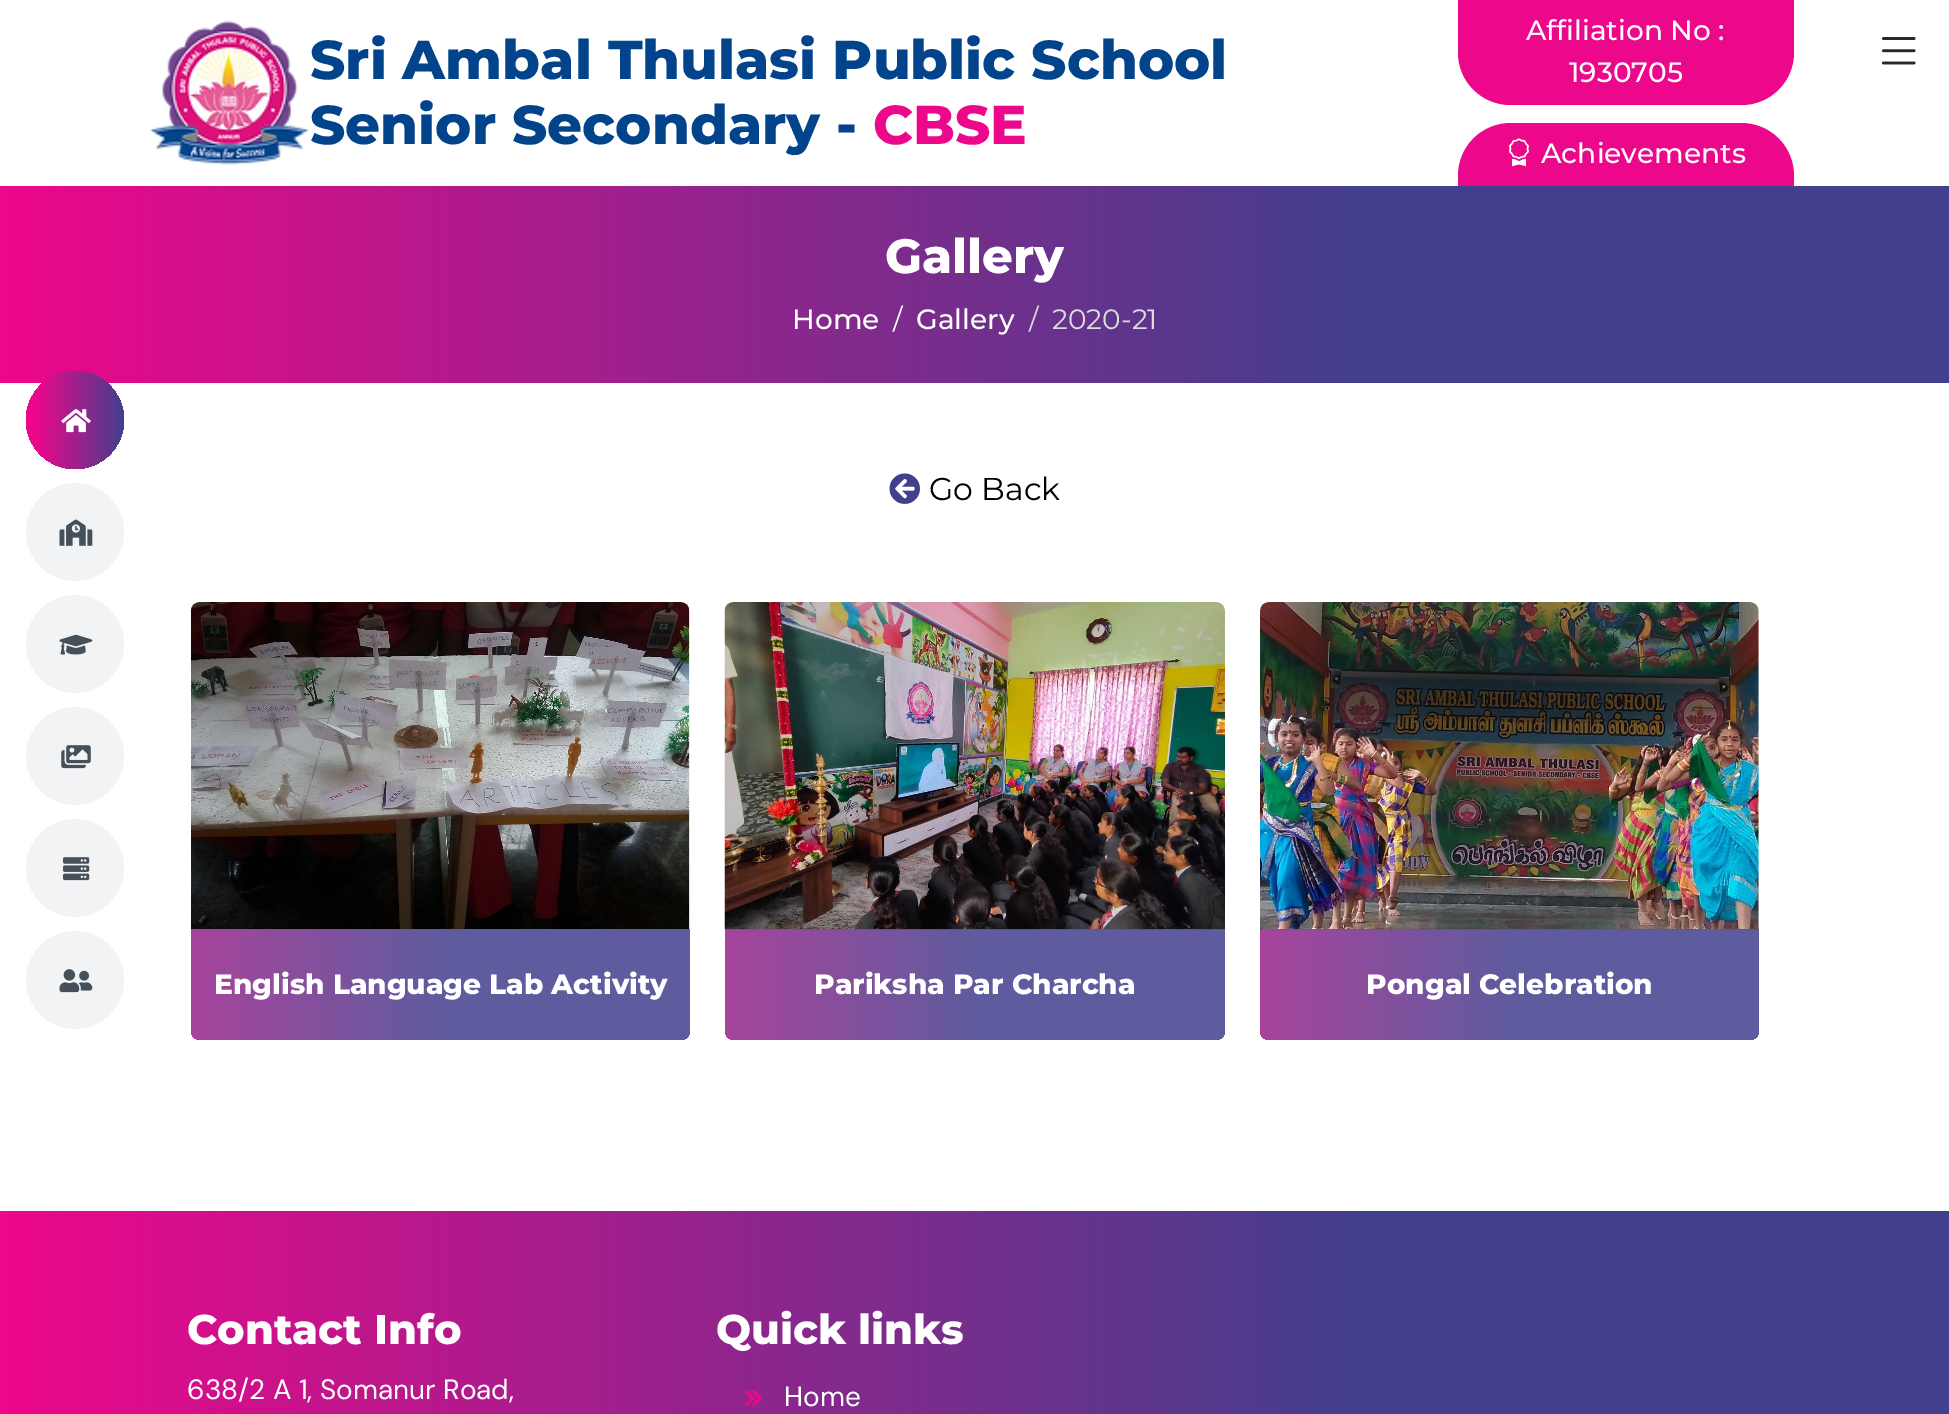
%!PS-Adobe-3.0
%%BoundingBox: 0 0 1949 1414
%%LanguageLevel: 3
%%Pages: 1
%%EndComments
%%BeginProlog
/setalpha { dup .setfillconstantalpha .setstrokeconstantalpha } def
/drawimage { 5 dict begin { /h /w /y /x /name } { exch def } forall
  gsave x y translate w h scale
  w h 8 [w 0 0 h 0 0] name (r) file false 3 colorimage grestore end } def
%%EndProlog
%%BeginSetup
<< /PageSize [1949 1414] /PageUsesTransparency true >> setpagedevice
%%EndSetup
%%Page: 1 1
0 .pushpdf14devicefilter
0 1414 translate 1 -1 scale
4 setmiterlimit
1 setgray
0 0 1949 1414 rectfill
(images/1.raw) 150 20 159 145 drawimage
0.929 0.027 0.545 setrgbcolor
newpath 1458 0 moveto 1794 0 lineto 1794 52.5 lineto 1794 81.5 1770.5 105 1741.5 105 curveto 1510.5 105 lineto 1481.5 105 1458 81.5 1458 52.5 curveto closepath fill
newpath 1511 123 moveto 1741 123 lineto 1770.5 123 1794 146.5 1794 176 curveto 1794 186 lineto 1458 186 lineto 1458 176 lineto 1458 146.5 1481.5 123 1511 123 curveto closepath fill
(images/2.raw) 1509 138 20 29 drawimage
(images/3.raw) 1881 37 35 28 drawimage
gsave newpath 0 186 moveto 1949 186 lineto 1949 383 lineto 0 383 lineto closepath clip newpath
<< /ShadingType 2 /ColorSpace /DeviceRGB /Coords [0 284 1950 284] /Extend [true true] /Function << /FunctionType 3 /Domain [0 1] /Functions [<< /FunctionType 2 /Domain [0 1] /C0 [0.929 0.027 0.545] /C1 [0.259 0.247 0.553] /N 1 >> << /FunctionType 2 /Domain [0 1] /C0 [0.259 0.247 0.553] /C1 [0.259 0.247 0.553] /N 1 >>] /Bounds [0.7] /Encode [0 1 0 1] >> >> shfill grestore
gsave newpath 75 420 49 0 360 arc closepath clip newpath
<< /ShadingType 2 /ColorSpace /DeviceRGB /Coords [26 420 124 420] /Extend [true true] /Function << /FunctionType 3 /Domain [0 1] /Functions [<< /FunctionType 2 /Domain [0 1] /C0 [0.929 0.027 0.545] /C1 [0.929 0.027 0.545] /N 1 >> << /FunctionType 2 /Domain [0 1] /C0 [0.929 0.027 0.545] /C1 [0.259 0.247 0.553] /N 1 >>] /Bounds [0.1] /Encode [0 1 0 1] >> >> shfill grestore
(images/4.raw) 61 409 30 24 drawimage
0.949 0.953 0.961 setrgbcolor
newpath 75 532 49 0 360 arc closepath fill
(images/5.raw) 59 519 34 27 drawimage
newpath 75 644 49 0 360 arc closepath fill
(images/6.raw) 59 634 34 21 drawimage
newpath 75 756 49 0 360 arc closepath fill
(images/7.raw) 61 745 30 24 drawimage
newpath 75 868 49 0 360 arc closepath fill
(images/8.raw) 63 857 27 24 drawimage
newpath 75 980 49 0 360 arc closepath fill
(images/9.raw) 59 969 34 24 drawimage
(images/10.raw) 889 473 31 31 drawimage
(images/11.raw) 191 602 499 328 drawimage
0.85 setalpha
gsave newpath 191 929 moveto 690 929 lineto 690 1031 lineto 690 1036 686 1040 681 1040 curveto 200 1040 lineto 195 1040 191 1036 191 1031 curveto closepath clip newpath
<< /ShadingType 2 /ColorSpace /DeviceRGB /Coords [-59 984 690 984] /Extend [true true] /Function << /FunctionType 3 /Domain [0 1] /Functions [<< /FunctionType 2 /Domain [0 1] /C0 [0.929 0.027 0.537] /C1 [0.259 0.247 0.553] /N 1 >> << /FunctionType 2 /Domain [0 1] /C0 [0.259 0.247 0.553] /C1 [0.259 0.247 0.553] /N 1 >>] /Bounds [0.67] /Encode [0 1 0 1] >> >> shfill grestore
1 setalpha
(images/12.raw) 724 602 501 328 drawimage
0.85 setalpha
gsave newpath 725 929 moveto 1225 929 lineto 1225 1031 lineto 1225 1036 1221 1040 1216 1040 curveto 734 1040 lineto 729 1040 725 1036 725 1031 curveto closepath clip newpath
<< /ShadingType 2 /ColorSpace /DeviceRGB /Coords [474 984 1225 984] /Extend [true true] /Function << /FunctionType 3 /Domain [0 1] /Functions [<< /FunctionType 2 /Domain [0 1] /C0 [0.929 0.027 0.537] /C1 [0.259 0.247 0.553] /N 1 >> << /FunctionType 2 /Domain [0 1] /C0 [0.259 0.247 0.553] /C1 [0.259 0.247 0.553] /N 1 >>] /Bounds [0.67] /Encode [0 1 0 1] >> >> shfill grestore
1 setalpha
(images/13.raw) 1260 602 499 328 drawimage
0.85 setalpha
gsave newpath 1260 929 moveto 1759 929 lineto 1759 1031 lineto 1759 1036 1755 1040 1750 1040 curveto 1269 1040 lineto 1264 1040 1260 1036 1260 1031 curveto closepath clip newpath
<< /ShadingType 2 /ColorSpace /DeviceRGB /Coords [1011 984 1759 984] /Extend [true true] /Function << /FunctionType 3 /Domain [0 1] /Functions [<< /FunctionType 2 /Domain [0 1] /C0 [0.929 0.027 0.537] /C1 [0.259 0.247 0.553] /N 1 >> << /FunctionType 2 /Domain [0 1] /C0 [0.259 0.247 0.553] /C1 [0.259 0.247 0.553] /N 1 >>] /Bounds [0.67] /Encode [0 1 0 1] >> >> shfill grestore
1 setalpha
gsave newpath 0 1211 moveto 1949 1211 lineto 1949 1414 lineto 0 1414 lineto closepath clip newpath
<< /ShadingType 2 /ColorSpace /DeviceRGB /Coords [0 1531 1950 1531] /Extend [true true] /Function << /FunctionType 3 /Domain [0 1] /Functions [<< /FunctionType 2 /Domain [0 1] /C0 [0.929 0.027 0.545] /C1 [0.259 0.247 0.553] /N 1 >> << /FunctionType 2 /Domain [0 1] /C0 [0.259 0.247 0.553] /C1 [0.259 0.247 0.553] /N 1 >>] /Bounds [0.7] /Encode [0 1 0 1] >> >> shfill grestore
(images/14.raw) 744 1389 18 18 drawimage
/Montserrat-ExtraBold [54.6 0 0 -54.6 0 0] selectfont
0.008 0.267 0.549 setrgbcolor
310 79 moveto (Sri Ambal Thulasi Public School) show
310 144 moveto (Senior Secondary -) show
0.929 0.027 0.545 setrgbcolor
873 144 moveto (CBSE) show
/Montserrat-Medium [28 0 0 -28 0 0] selectfont
1 setgray
1526 40 moveto (Affiliation No :) show
1569 82 moveto (1930705) show
1541 163 moveto (Achievements) show
/Montserrat-ExtraBold [48 0 0 -48 0 0] selectfont
885 273 moveto (Gallery) show
/Montserrat-Medium [28 0 0 -28 0 0] selectfont
792 329 moveto (Home) show
/Montserrat-Regular [28 0 0 -28 0 0] selectfont
893 329 moveto (/) show
/Montserrat-Medium [28 0 0 -28 0 0] selectfont
916 329 moveto (Gallery) show
/Montserrat-Regular [28 0 0 -28 0 0] selectfont
0.867 setgray
1029 329 moveto (/) show
1052 329 moveto (2020-21) show
/Montserrat-Regular [31.5 0 0 -31.5 0 0] selectfont
0 setgray
929 500 moveto (Go Back) show
/Montserrat-ExtraBold [28 0 0 -28 0 0] selectfont
1 setgray
214 994 moveto (English Language Lab Activity) show
814 994 moveto (Pariksha Par Charcha) show
1366 994 moveto (Pongal Celebration) show
/Montserrat-ExtraBold [41.5 0 0 -41.5 0 0] selectfont
187 1344 moveto (Contact Info) show
/DMSans-Regular [28 0 0 -28 0 0] selectfont
187 1399 moveto (638/2 A 1, Somanur Road,) show
/Montserrat-ExtraBold [41.5 0 0 -41.5 0 0] selectfont
716 1344 moveto (Quick links) show
/DMSans-Regular [28 0 0 -28 0 0] selectfont
784 1406 moveto (Home) show
.poppdf14devicefilter showpage
%%EOF
